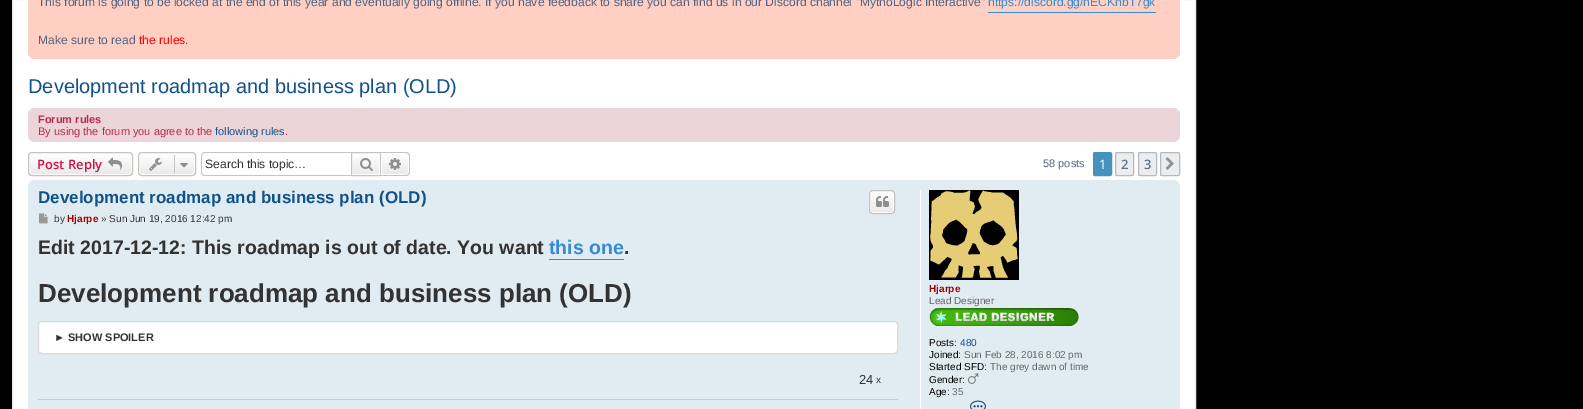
%!PS-Adobe-3.0
%%BoundingBox: 0 0 1583 409
%%LanguageLevel: 3
%%Pages: 1
%%EndComments
%%BeginProlog
/rrect { 5 dict begin { /r /h /w /y /x } { exch def } forall
  x r add y moveto x w add y 2 copy h add r arct x w add y h add x 1 index r arct
  x y h add x y r arct x y 2 copy exch w add exch r arct closepath end } def
/drawimage { 5 dict begin { /h /w /y /x /name } { exch def } forall
  gsave x y translate w h scale
  w h 8 [w 0 0 h 0 0] name (r) file false 3 colorimage grestore end } def
%%EndProlog
%%BeginSetup
<< /PageSize [1583 409] >> setpagedevice
%%EndSetup
%%Page: 1 1
0 409 translate 1 -1 scale
4 setmiterlimit
0 setgray
0 0 1583 409 rectfill
1 setgray
newpath 12.5 -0.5 moveto 1195.5 -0.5 lineto 1195.5 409.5 lineto 12.5 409.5 lineto closepath gsave fill grestore
0.902 0.914 0.929 setrgbcolor
stroke
1 0.812 0.769 setrgbcolor
28 -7 1152 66 7 rrect fill
0.212 0.541 0.824 setrgbcolor
988 12 168 1 rectfill
0.925 0.835 0.847 setrgbcolor
28 108 1152 34 7 rrect fill
gsave
28 152 105 24 4 rrect clip newpath
gsave newpath 28 153 moveto 133 153 lineto 133 175 lineto 28 175 lineto closepath clip newpath
<< /ShadingType 2 /ColorSpace /DeviceRGB /Coords [81 153 81 175] /Extend [true true] /Function << /FunctionType 2 /Domain [0 1] /C0 [1 1 1] /C1 [0.914 0.914 0.914] /N 1 >> >> shfill grestore
grestore
1 setgray
29.5 153.5 102 21 2.5 rrect stroke
0.78 0.765 0.749 setrgbcolor
28.5 152.5 104 23 3.5 rrect stroke
(images/1.raw) 108 157 14 13 drawimage
gsave
138 152 58 24 4 rrect clip newpath
gsave newpath 138 153 moveto 196 153 lineto 196 175 lineto 138 175 lineto closepath clip newpath
<< /ShadingType 2 /ColorSpace /DeviceRGB /Coords [167 153 167 175] /Extend [true true] /Function << /FunctionType 2 /Domain [0 1] /C0 [1 1 1] /C1 [0.914 0.914 0.914] /N 1 >> >> shfill grestore
grestore
1 setgray
139.5 153.5 55 21 2.5 rrect stroke
0.78 0.765 0.749 setrgbcolor
138.5 152.5 57 23 3.5 rrect stroke
(images/2.raw) 149 158 13 13 drawimage
174 155 1 18 rectfill
(images/3.raw) 180 163 8 5 drawimage
newpath 205 152 moveto 351 152 lineto 351 176 lineto 205 176 lineto 203 176 201 174 201 172 curveto 201 156 lineto 201 154 203 152 205 152 curveto closepath 205 153 moveto 351 153 lineto 351 175 lineto 205 175 lineto 203 175 202 174 202 172 curveto 202 156 lineto 202 154 203 153 205 153 curveto closepath eofill
gsave newpath 353 156 moveto 379 156 lineto 379 174 lineto 353 174 lineto closepath clip newpath
<< /ShadingType 2 /ColorSpace /DeviceRGB /Coords [366 153 366 175] /Extend [true true] /Function << /FunctionType 2 /Domain [0 1] /C0 [1 1 1] /C1 [0.914 0.914 0.914] /N 1 >> >> shfill grestore
351.5 152.5 29 23 rectstroke
(images/4.raw) 360 158 13 13 drawimage
gsave newpath 381.5 153.5 moveto 406 153.5 lineto 407.5 153.5 408.5 154.5 408.5 156 curveto 408.5 172 lineto 408.5 173.5 407.5 174.5 406 174.5 curveto 381.5 174.5 lineto closepath clip newpath
<< /ShadingType 2 /ColorSpace /DeviceRGB /Coords [395 153 395 175] /Extend [true true] /Function << /FunctionType 2 /Domain [0 1] /C0 [1 1 1] /C1 [0.914 0.914 0.914] /N 1 >> >> shfill grestore
1 setgray
newpath 381.5 153.5 moveto 406 153.5 lineto 407.5 153.5 408.5 154.5 408.5 156 curveto 408.5 172 lineto 408.5 173.5 407.5 174.5 406 174.5 curveto 381.5 174.5 lineto closepath stroke
0.78 0.765 0.749 setrgbcolor
newpath 381 152 moveto 406 152 lineto 408 152 410 154 410 156 curveto 410 172 lineto 410 174 408 176 406 176 curveto 381 176 lineto closepath 381 153 moveto 406 153 lineto 407.5 153 409 154.5 409 156 curveto 409 172 lineto 409 173.5 407.5 175 406 175 curveto 381 175 lineto closepath eofill
(images/5.raw) 389 158 12 12 drawimage
0.275 0.573 0.749 setrgbcolor
1093.5 152.5 18 23 1.5 rrect gsave fill grestore
stroke
0.925 0.929 0.933 setrgbcolor
1115.5 152.5 18 23 1.5 rrect gsave fill grestore
0.706 0.729 0.753 setrgbcolor
stroke
0.925 0.929 0.933 setrgbcolor
1138.5 152.5 18 23 1.5 rrect gsave fill grestore
0.706 0.729 0.753 setrgbcolor
stroke
0.925 0.929 0.933 setrgbcolor
1160.5 152.5 19 23 1.5 rrect gsave fill grestore
0.706 0.729 0.753 setrgbcolor
stroke
(images/6.raw) 1165 157 9 13 drawimage
0.882 0.922 0.949 setrgbcolor
28 180 1152 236 7 rrect fill
gsave
869 190 26 24 4 rrect clip newpath
gsave newpath 869 191 moveto 895 191 lineto 895 213 lineto 869 213 lineto closepath clip newpath
<< /ShadingType 2 /ColorSpace /DeviceRGB /Coords [882 191 882 213] /Extend [true true] /Function << /FunctionType 2 /Domain [0 1] /C0 [1 1 1] /C1 [0.914 0.914 0.914] /N 1 >> >> shfill grestore
grestore
1 setgray
870.5 191.5 23 21 2.5 rrect stroke
0.78 0.765 0.749 setrgbcolor
869.5 190.5 25 23 3.5 rrect stroke
(images/7.raw) 876 196 13 11 drawimage
(images/8.raw) 39 213 9 11 drawimage
0.212 0.541 0.824 setrgbcolor
549 259 75 1 rectfill
1 setgray
38.5 321.5 859 32 3.5 rrect gsave fill grestore
0.859 setgray
stroke
0.8 setgray
38 399 860 1 rectfill
1 setgray
920 190 1 219 rectfill
(images/9.raw) 929 190 90 90 drawimage
(images/10.raw) 929 308 150 18 drawimage
(images/11.raw) 968 373 11 11 drawimage
(images/12.raw) 970 400 16 9 drawimage
/LiberationSans-Regular [12.1 0 0 -12.1 0 0] selectfont
0.325 0.392 0.51 setrgbcolor
38 6 moveto (This forum is going to be locked at the end of this year and eventually going offline. If you have feedback to share you can find us in our Discord channel "MythoLogic Interactive") show
0.212 0.541 0.824 setrgbcolor
988 6 moveto (https://discord.gg/nECKnbT7gk) show
0.325 0.392 0.51 setrgbcolor
38 44 moveto (Make sure to read) show
1 0 0 setrgbcolor
139 44 moveto (the rules) show
0.325 0.392 0.51 setrgbcolor
185 44 moveto (.) show
/LiberationSans-Regular [20 0 0 -20 0 0] selectfont
0.063 0.322 0.537 setrgbcolor
28 93 moveto (Development roadmap and business plan \(OLD\)) show
/LiberationSans-Bold [11 0 0 -11 0 0] selectfont
0.737 0.165 0.302 setrgbcolor
38 123 moveto (Forum rules) show
/LiberationSans-Regular [11 0 0 -11 0 0] selectfont
38 135 moveto (By using the forum you agree to the) show
0.063 0.322 0.537 setrgbcolor
215 135 moveto (following rules) show
0.737 0.165 0.302 setrgbcolor
285 135 moveto (.) show
/OpenSans-SemiBold [13 0 0 -13 0 0] selectfont
0.827 0.067 0.255 setrgbcolor
37 169 moveto (Post Reply) show
/LiberationSans-Regular [12.1 0 0 -12.1 0 0] selectfont
0.2 setgray
205 168 moveto (Search this topic…) show
/LiberationSans-Regular [11 0 0 -11 0 0] selectfont
0.325 0.392 0.51 setrgbcolor
1043 167 moveto (58 posts) show
/OpenSans-Regular [13 0 0 -13 0 0] selectfont
1 setgray
1099 169 moveto (1) show
/OpenSans-SemiBold [13 0 0 -13 0 0] selectfont
0.361 0.459 0.549 setrgbcolor
1121 169 moveto (2) show
1144 169 moveto (3) show
/LiberationSans-Bold [17 0 0 -17 0 0] selectfont
0.063 0.322 0.537 setrgbcolor
38 203 moveto (Development roadmap and business plan \(OLD\)) show
/LiberationSans-Regular [10 0 0 -10 0 0] selectfont
0.2 setgray
54 222 moveto (by) show
/LiberationSans-Bold [10 0 0 -10 0 0] selectfont
0.667 0 0 setrgbcolor
67 222 moveto (Hjarpe) show
/LiberationSans-Regular [10 0 0 -10 0 0] selectfont
0.2 setgray
101 222 moveto (» Sun Jun 19, 2016 12:42 pm) show
/LiberationSans-Bold [19.5 0 0 -19.5 0 0] selectfont
38 254 moveto (Edit 2017-12-12: This roadmap is out of date. You want) show
0.212 0.541 0.824 setrgbcolor
549 254 moveto (this one) show
0.2 setgray
624 254 moveto (.) show
/LiberationSans-Bold [26 0 0 -26 0 0] selectfont
38 302 moveto (Development roadmap and business plan \(OLD\)) show
/LiberationSans-Bold [11 0 0 -11 0 0] selectfont
54 341 moveto (► SHOW SPOILER) show
/LiberationSans-Regular [13 0 0 -13 0 0] selectfont
859 384 moveto (24) show
/LiberationSans-Regular [10 0 0 -10 0 0] selectfont
876 383 moveto (x) show
/LiberationSans-Bold [10 0 0 -10 0 0] selectfont
0.667 0 0 setrgbcolor
929 292 moveto (Hjarpe) show
/LiberationSans-Regular [10 0 0 -10 0 0] selectfont
0.4 setgray
929 304 moveto (Lead Designer) show
0 setgray
929 346 moveto (Posts:) show
0.063 0.322 0.537 setrgbcolor
960 346 moveto (480) show
0 setgray
929 358 moveto (Joined:) show
0.4 setgray
964 358 moveto (Sun Feb 28, 2016 8:02 pm) show
0 setgray
929 370 moveto (Started SFD:) show
0.4 setgray
990 370 moveto (The grey dawn of time) show
0 setgray
929 383 moveto (Gender:) show
929 395 moveto (Age:) show
0.4 setgray
952 395 moveto (35) show
showpage
%%EOF
